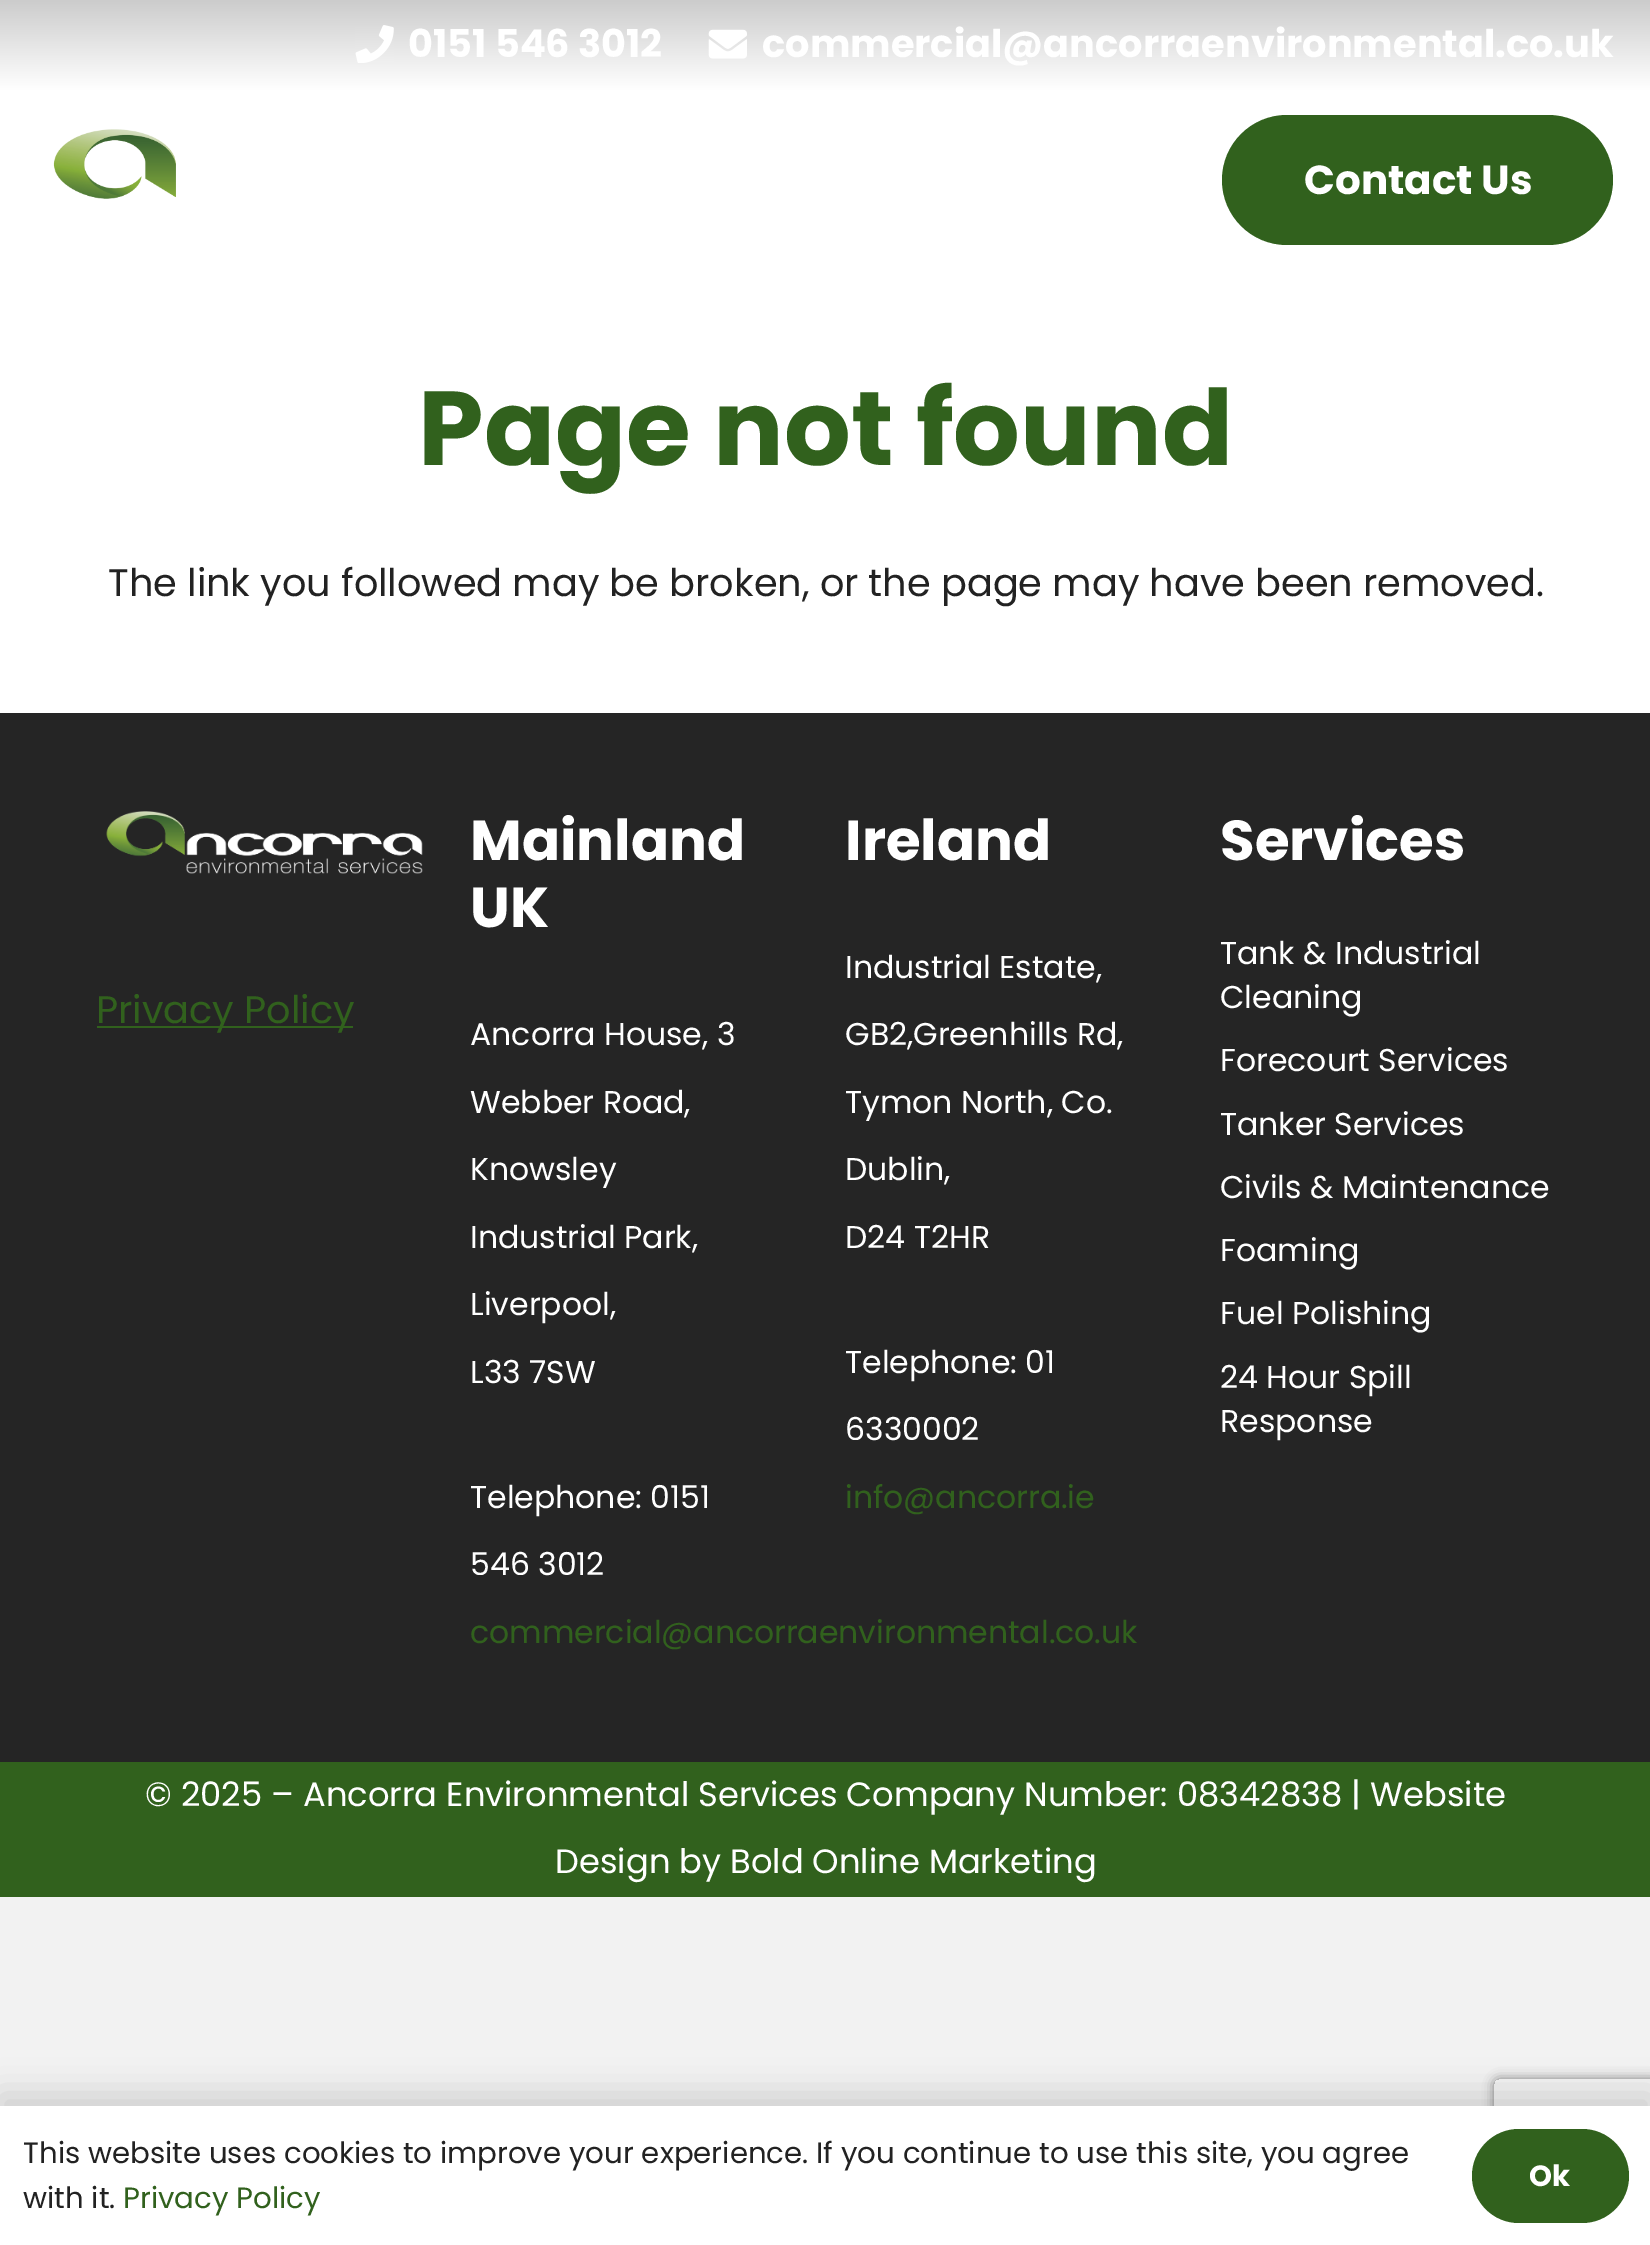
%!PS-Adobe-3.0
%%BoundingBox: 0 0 1650 2245
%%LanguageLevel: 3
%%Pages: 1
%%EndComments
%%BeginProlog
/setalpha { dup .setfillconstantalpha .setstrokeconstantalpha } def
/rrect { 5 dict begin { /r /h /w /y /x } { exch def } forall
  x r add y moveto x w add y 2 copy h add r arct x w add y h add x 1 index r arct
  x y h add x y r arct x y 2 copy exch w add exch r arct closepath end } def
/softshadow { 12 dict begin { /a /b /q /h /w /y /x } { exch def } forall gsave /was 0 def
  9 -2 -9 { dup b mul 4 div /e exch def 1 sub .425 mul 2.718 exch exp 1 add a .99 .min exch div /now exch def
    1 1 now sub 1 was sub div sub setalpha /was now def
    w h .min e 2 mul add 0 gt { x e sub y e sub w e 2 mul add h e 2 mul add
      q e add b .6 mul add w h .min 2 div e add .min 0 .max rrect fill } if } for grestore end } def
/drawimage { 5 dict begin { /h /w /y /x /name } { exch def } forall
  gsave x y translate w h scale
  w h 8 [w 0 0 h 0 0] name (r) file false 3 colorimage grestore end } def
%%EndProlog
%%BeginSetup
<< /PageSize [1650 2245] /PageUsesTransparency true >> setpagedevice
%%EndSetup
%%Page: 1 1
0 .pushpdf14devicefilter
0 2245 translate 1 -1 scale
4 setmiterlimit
0.949 setgray
0 0 1650 2245 rectfill
1 setgray
0 90 1650 623 rectfill
gsave newpath 0 0 moveto 1650 0 lineto 1650 90 lineto 0 90 lineto closepath clip newpath
<< /ShadingType 2 /ColorSpace /DeviceRGB /Coords [826 90 826 0] /Extend [true true] /Function << /FunctionType 2 /Domain [0 1] /C0 [1 1 1] /C1 [0.8 0.8 0.8] /N 1 >> >> shfill grestore
(images/1.raw) 355 25 39 38 drawimage
(images/2.raw) 708 29 39 30 drawimage
(images/3.raw) 53 129 123 70 drawimage
0.192 0.38 0.114 setrgbcolor
1222 115 391 130 65 rrect fill
0.145 setgray
0 713 1650 1049 rectfill
(images/4.raw) 106 811 317 63 drawimage
0.192 0.38 0.114 setrgbcolor
97 1026 256 2 rectfill
0 1762 1650 135 rectfill
gsave
newpath 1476 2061 moveto 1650 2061 lineto 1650 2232 lineto 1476 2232 lineto closepath 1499 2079 moveto 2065 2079 lineto 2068 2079 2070 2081 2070 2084 curveto 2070 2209 lineto 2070 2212 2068 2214 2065 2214 curveto 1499 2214 lineto 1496 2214 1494 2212 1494 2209 curveto 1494 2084 lineto 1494 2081 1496 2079 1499 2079 curveto closepath eoclip newpath
0.502 setgray
1494 2079 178 135 5 5.5 1 softshadow
grestore
0 setgray
0 2095 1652 139 0 17 0.15 softshadow
1 setgray
0 2106 1650 139 rectfill
0.192 0.38 0.114 setrgbcolor
1472 2129 157 94 47 rrect fill
/Poppins-Bold [38.25 0 0 -38.25 0 0] selectfont
1 setgray
408 57 moveto (0151 546 3012) show
762 57 moveto (commercial@ancorraenvironmental.co.uk) show
/Poppins-Bold [40.5 0 0 -40.5 0 0] selectfont
1304 194 moveto (Contact Us) show
/Poppins-Bold [105 0 0 -105 0 0] selectfont
0.192 0.38 0.114 setrgbcolor
418 465 moveto (Page not found) show
/Poppins-Regular [38.25 0 0 -38.25 0 0] selectfont
0.133 setgray
108 596 moveto (The link you followed may be broken, or the page may have been removed.) show
/Poppins-Bold [56.25 0 0 -56.25 0 0] selectfont
1 setgray
470 860 moveto (Mainland) show
470 927 moveto (UK) show
/Poppins-Regular [31.5 0 0 -31.5 0 0] selectfont
470 1045 moveto (Ancorra House, 3) show
470 1113 moveto (Webber Road,) show
470 1180 moveto (Knowsley) show
470 1248 moveto (Industrial Park,) show
470 1315 moveto (Liverpool,) show
470 1383 moveto (L33 7SW) show
470 1508 moveto (Telephone: 0151) show
470 1575 moveto (546 3012) show
0.192 0.38 0.114 setrgbcolor
470 1643 moveto (commercial@ancorraenvironmental.co.uk) show
/Poppins-Bold [56.25 0 0 -56.25 0 0] selectfont
1 setgray
1220 860 moveto (Services) show
/Poppins-Regular [31.5 0 0 -31.5 0 0] selectfont
1220 964 moveto (Tank & Industrial) show
1220 1008 moveto (Cleaning) show
1220 1071 moveto (Forecourt Services) show
1220 1135 moveto (Tanker Services) show
1220 1198 moveto (Civils & Maintenance) show
1220 1261 moveto (Foaming) show
1220 1324 moveto (Fuel Polishing) show
1220 1388 moveto (24 Hour Spill) show
1220 1432 moveto (Response) show
/Poppins-Regular [38.25 0 0 -38.25 0 0] selectfont
0.192 0.38 0.114 setrgbcolor
96 1023 moveto (Privacy Policy) show
/Poppins-Bold [56.25 0 0 -56.25 0 0] selectfont
1 setgray
845 860 moveto (Ireland) show
/Poppins-Regular [31.5 0 0 -31.5 0 0] selectfont
845 978 moveto (Industrial Estate,) show
845 1045 moveto (GB2,Greenhills Rd,) show
845 1113 moveto (Tymon North, Co.) show
845 1180 moveto (Dublin,) show
845 1248 moveto (D24 T2HR) show
845 1373 moveto (Telephone: 01) show
845 1440 moveto (6330002) show
0.192 0.38 0.114 setrgbcolor
845 1508 moveto (info@ancorra.ie) show
/Poppins-Regular [33.75 0 0 -33.75 0 0] selectfont
1 setgray
145 1806 moveto (© 2025 – Ancorra Environmental Services Company Number: 08342838 | Website) show
555 1873 moveto (Design by Bold Online Marketing) show
/Poppins-Regular [29.25 0 0 -29.25 0 0] selectfont
0.133 setgray
23 2163 moveto (This website uses cookies to improve your experience. If you continue to use this site, you agree) show
23 2208 moveto (with it.) show
0.192 0.38 0.114 setrgbcolor
123 2208 moveto (Privacy Policy) show
/Poppins-Bold [29.25 0 0 -29.25 0 0] selectfont
1 setgray
1529 2186 moveto (Ok) show
.poppdf14devicefilter showpage
%%EOF
